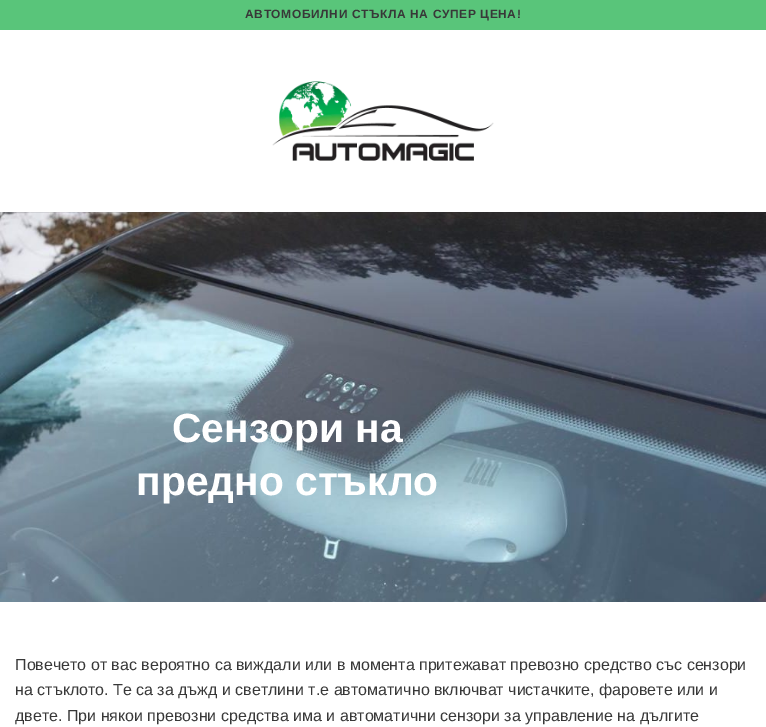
%!PS-Adobe-3.0
%%BoundingBox: 0 0 766 727
%%LanguageLevel: 3
%%Pages: 1
%%EndComments
%%BeginProlog
/setalpha { dup .setfillconstantalpha .setstrokeconstantalpha } def
/drawimage { 5 dict begin { /h /w /y /x /name } { exch def } forall
  gsave x y translate w h scale
  w h 8 [w 0 0 h 0 0] name (r) file false 3 colorimage grestore end } def
%%EndProlog
%%BeginSetup
<< /PageSize [766 727] /PageUsesTransparency true >> setpagedevice
%%EndSetup
%%Page: 1 1
0 .pushpdf14devicefilter
0 727 translate 1 -1 scale
4 setmiterlimit
1 setgray
0 0 766 727 rectfill
0.349 0.773 0.478 setrgbcolor
0 0 766 30 rectfill
(images/1.raw) 272 81 222 80 drawimage
(images/2.raw) 0 212 766 390 drawimage
0.1 setalpha
0.22 setgray
15 212 217 1 rectfill
/LiberationSans-Bold [12 0 0 -12 0 0] selectfont
1 setalpha
245 18 moveto 0.6 0 (АВТОМОБИЛНИ СТЪКЛА НА СУПЕР ЦЕНА!) ashow
/LiberationSans-Bold [40.75 0 0 -40.75 0 0] selectfont
1 setgray
172 442 moveto (Сензори на) show
136 495 moveto (предно стъкло) show
/LiberationSans-Regular [16 0 0 -16 0 0] selectfont
0.22 setgray
15 670 moveto (Повечето от вас вероятно са виждали или в момента притежават превозно средство със сензори) show
15 695 moveto (на стъклото. Те са за дъжд и светлини т.е автоматично включват чистачките, фаровете или и) show
15 721 moveto (двете. При някои превозни средства има и автоматични сензори за управление на дългите) show
.poppdf14devicefilter showpage
%%EOF
